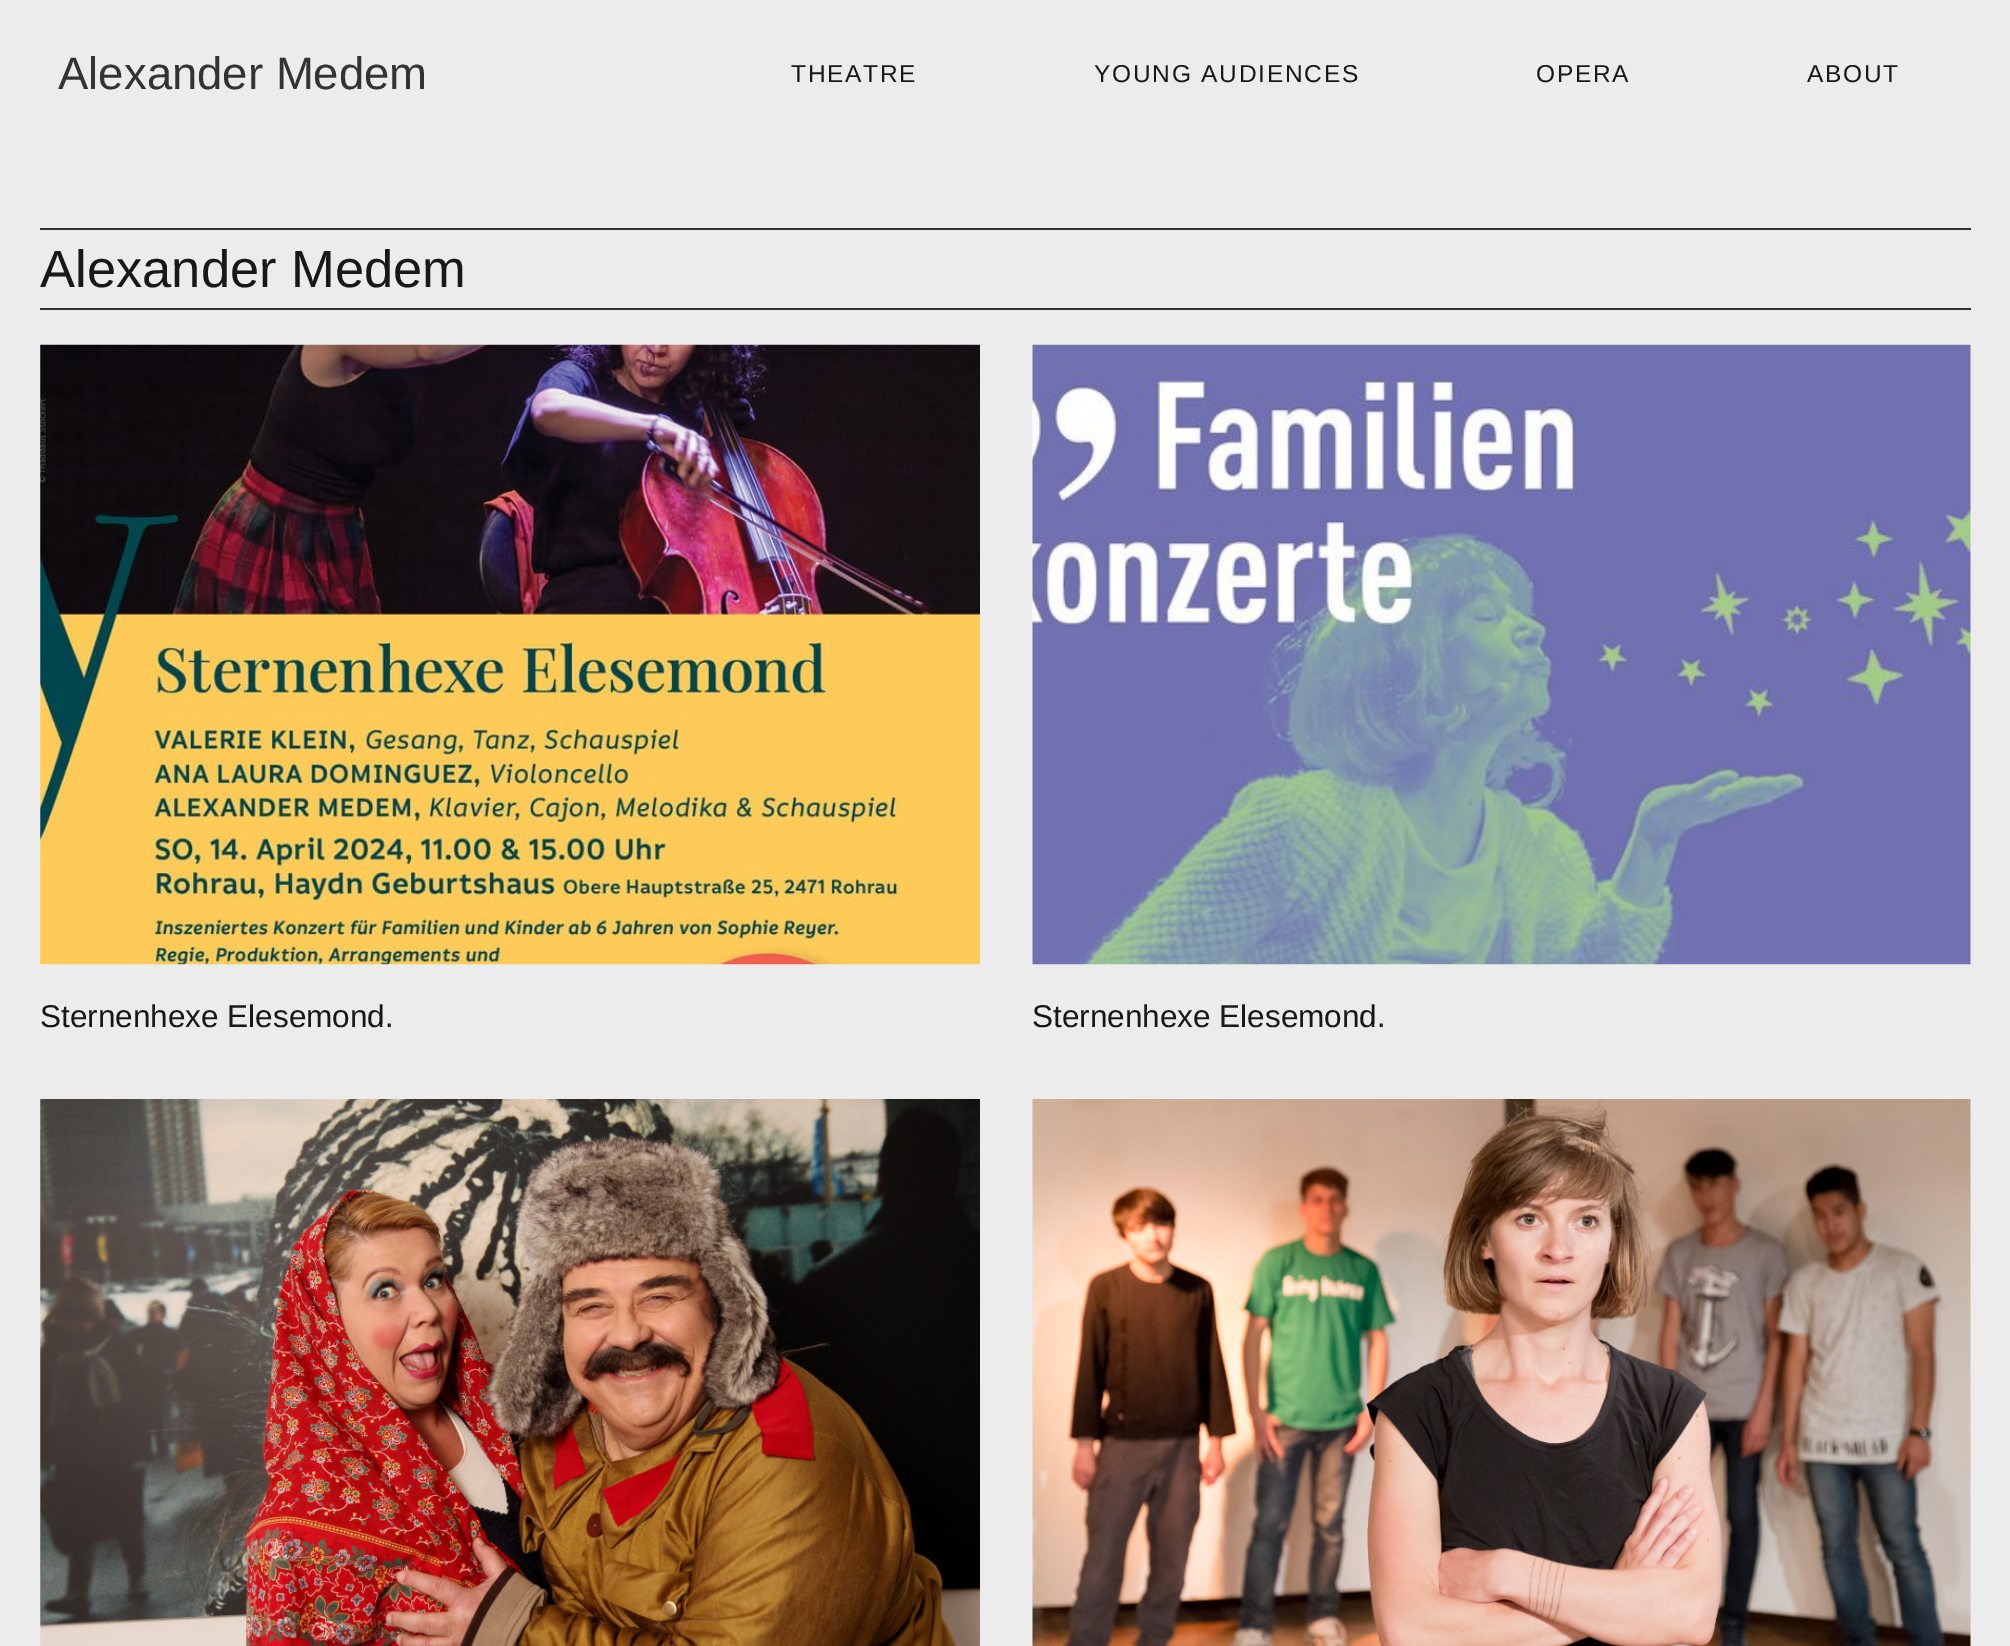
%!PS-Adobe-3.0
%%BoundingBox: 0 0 2010 1646
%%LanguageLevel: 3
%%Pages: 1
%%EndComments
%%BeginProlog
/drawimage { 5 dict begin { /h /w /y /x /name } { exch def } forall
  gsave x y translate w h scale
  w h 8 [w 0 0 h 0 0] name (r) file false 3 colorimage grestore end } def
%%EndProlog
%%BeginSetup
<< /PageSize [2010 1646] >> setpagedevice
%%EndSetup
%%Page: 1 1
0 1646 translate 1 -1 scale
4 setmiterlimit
0.925 setgray
0 0 2010 1646 rectfill
0.2 setgray
40 228 1931 2 rectfill
40 308 1931 2 rectfill
(images/1.raw) 40 344 940 621 drawimage
(images/2.raw) 1032 344 939 621 drawimage
(images/3.raw) 40 1099 940 547 drawimage
(images/4.raw) 1032 1099 939 547 drawimage
/LiberationSans-Regular [45.5 0 0 -45.5 0 0] selectfont
58 89 moveto (Alexander Medem) show
/LiberationSans-Regular [24.5 0 0 -24.5 0 0] selectfont
0.09 0.094 0.102 setrgbcolor
791 82 moveto 1.75 0 (THEATRE) ashow
1094 82 moveto 1.75 0 (YOUNG AUDIENCES) ashow
1536 82 moveto 1.75 0 (OPERA) ashow
1807 82 moveto 1.75 0 (ABOUT) ashow
/LiberationSans-Regular [52.5 0 0 -52.5 0 0] selectfont
40 287 moveto (Alexander Medem) show
/LiberationSans-Regular [31.5 0 0 -31.5 0 0] selectfont
40 1027 moveto (Sternenhexe Elesemond.) show
1032 1027 moveto (Sternenhexe Elesemond.) show
showpage
%%EOF
